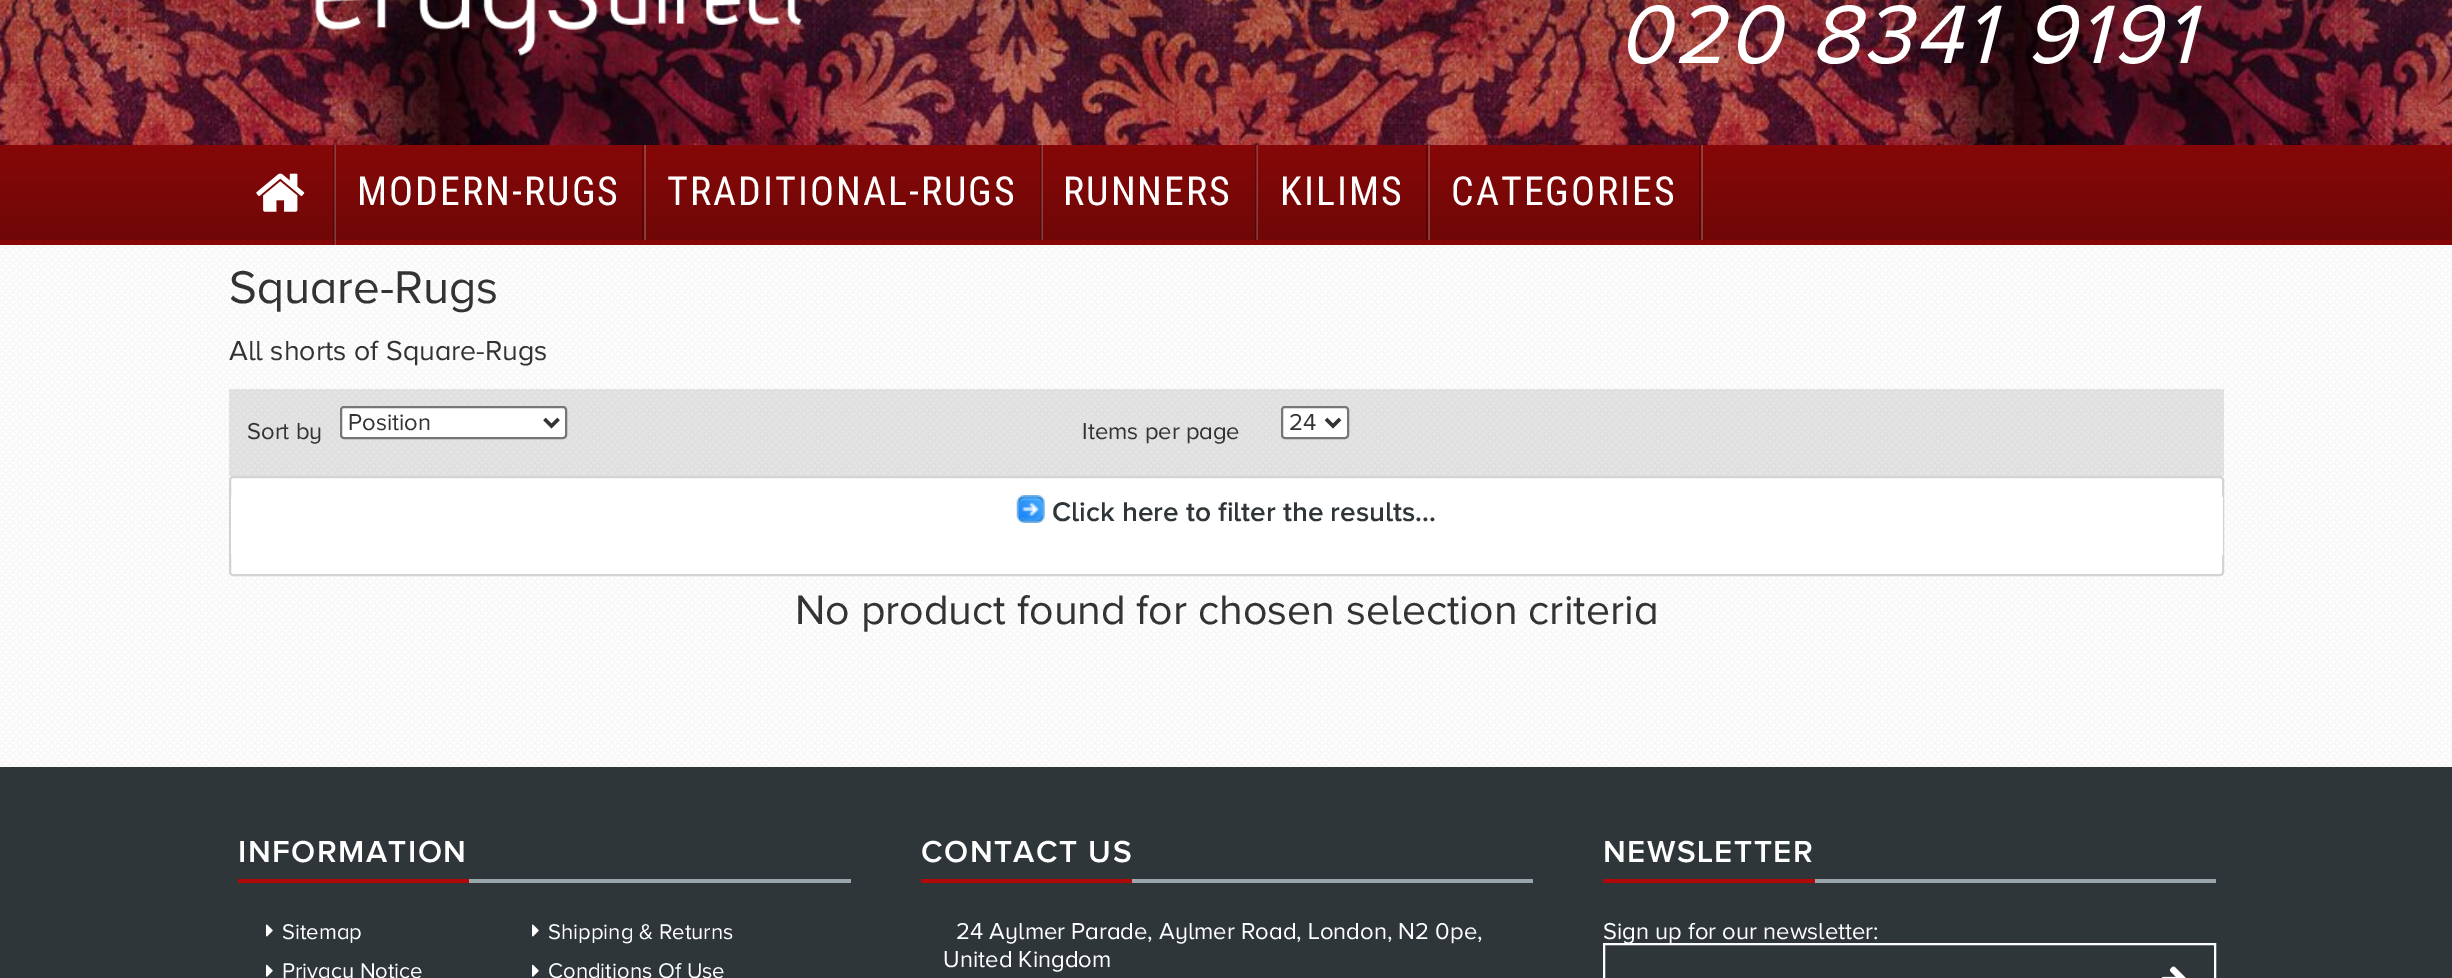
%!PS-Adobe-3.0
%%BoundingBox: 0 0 2452 978
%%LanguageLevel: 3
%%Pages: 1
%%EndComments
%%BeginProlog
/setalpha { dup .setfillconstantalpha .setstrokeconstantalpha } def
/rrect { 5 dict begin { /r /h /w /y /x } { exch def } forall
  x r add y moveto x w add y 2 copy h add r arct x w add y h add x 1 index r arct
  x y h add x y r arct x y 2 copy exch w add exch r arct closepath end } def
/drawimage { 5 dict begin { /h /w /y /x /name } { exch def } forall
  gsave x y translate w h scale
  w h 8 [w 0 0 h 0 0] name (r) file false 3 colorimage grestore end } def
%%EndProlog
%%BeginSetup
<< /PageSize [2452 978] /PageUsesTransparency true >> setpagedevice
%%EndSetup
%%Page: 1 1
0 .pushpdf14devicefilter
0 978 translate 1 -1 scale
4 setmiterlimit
1 setgray
0 0 2452 978 rectfill
(images/1.raw) 0 245 2452 522 drawimage
(images/2.raw) 0 0 2452 145 drawimage
(images/3.raw) 315 0 487 56 drawimage
gsave newpath 0 145 moveto 2452 145 lineto 2452 240 lineto 0 240 lineto closepath clip newpath
<< /ShadingType 2 /ColorSpace /DeviceRGB /Coords [1227 145 1227 245] /Extend [true true] /Function << /FunctionType 2 /Domain [0 1] /C0 [0.525 0.027 0.027] /C1 [0.435 0.031 0.031] /N 1 >> >> shfill grestore
0.525 0.027 0.027 setrgbcolor
0 240 2452 5 rectfill
0.2 setalpha
1 setgray
newpath 231 145 moveto 334 145 lineto 334 245 lineto 336 245 lineto 336 145 lineto closepath fill
0.25 setalpha
0 setgray
333 145 2 100 rectfill
1 setalpha
(images/4.raw) 256 173 49 39 drawimage
0.2 setalpha
1 setgray
newpath 336 145 moveto 644 145 lineto 644 240 lineto 336 240 lineto 646 240 lineto 646 145 lineto closepath fill
0.25 setalpha
0 setgray
642 145 2 95 rectfill
0.2 setalpha
1 setgray
newpath 646 145 moveto 1041 145 lineto 1041 240 lineto 646 240 lineto 1043 240 lineto 1043 145 lineto closepath fill
0.25 setalpha
0 setgray
1040 145 2 95 rectfill
0.2 setalpha
1 setgray
newpath 1043 145 moveto 1256 145 lineto 1256 240 lineto 1043 240 lineto 1258 240 lineto 1258 145 lineto closepath fill
0.25 setalpha
0 setgray
1255 145 2 95 rectfill
0.2 setalpha
1 setgray
newpath 1258 145 moveto 1428 145 lineto 1428 240 lineto 1258 240 lineto 1430 240 lineto 1430 145 lineto closepath fill
0.25 setalpha
0 setgray
1426 145 2 95 rectfill
0.2 setalpha
1 setgray
newpath 1430 145 moveto 1701 145 lineto 1701 240 lineto 1430 240 lineto 1703 240 lineto 1703 145 lineto closepath fill
0.25 setalpha
0 setgray
1699 145 2 95 rectfill
0.1 setalpha
229 389 1995 87 rectfill
1 setalpha
1 setgray
341 407 225 31 3 rrect gsave fill grestore
0.463 setgray
2 setlinewidth
stroke
0.2 setgray
3.5 setlinewidth
newpath 544.5 419 moveto 551.5 426 lineto 558.5 419 lineto stroke
1 setgray
1282 407 66 31 3 rrect gsave fill grestore
0.463 setgray
2 setlinewidth
stroke
0.2 setgray
3.5 setlinewidth
newpath 1326 419 moveto 1333 426 lineto 1340 419 lineto stroke
1 setgray
230 477 1993 98 3 rrect gsave fill grestore
0.827 setgray
2 setlinewidth
stroke
1 setgray
231 495 1992 62 4 rrect fill
(images/5.raw) 1016 495 29 28 drawimage
0.184 0.212 0.227 setrgbcolor
0 767 2452 211 rectfill
0.604 0.647 0.675 setrgbcolor
469 879 382 4 rectfill
0.694 0.031 0.031 setrgbcolor
238 879 231 4 rectfill
(images/6.raw) 266 924 7 13 drawimage
(images/6.raw) 532 924 7 13 drawimage
(images/7.raw) 266 964 7 13 drawimage
(images/7.raw) 532 964 7 13 drawimage
0.604 0.647 0.675 setrgbcolor
1132 879 401 4 rectfill
0.694 0.031 0.031 setrgbcolor
921 879 211 4 rectfill
0.604 0.647 0.675 setrgbcolor
1815 879 401 4 rectfill
0.694 0.031 0.031 setrgbcolor
1603 879 212 4 rectfill
1 setgray
1604 944 611 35 rectstroke
(images/8.raw) 2161 966 25 12 drawimage
/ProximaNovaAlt-Italic [85.75 0 0 -85.75 0 0] selectfont
1618 63 moveto 3.5 0 (020 8341 9191) ashow
/RobotoCondensed-Regular [40 0 0 -40 0 0] selectfont
357 205 moveto 2 0 (MODERN-RUGS) ashow
667 205 moveto 2 0 (TRADITIONAL-RUGS) ashow
1063 205 moveto 2 0 (RUNNERS) ashow
1280 205 moveto 2 0 (KILIMS) ashow
1451 205 moveto 2 0 (CATEGORIES) ashow
/ProximaNovaAlt-Regular [47.5 0 0 -47.5 0 0] selectfont
0.2 setgray
229 303 moveto (Square-Rugs) show
/ProximaNovaAlt-Regular [28.5 0 0 -28.5 0 0] selectfont
229 360 moveto (All shorts of Square-Rugs) show
/ProximaNovaAlt-Regular [23.8 0 0 -23.8 0 0] selectfont
247 439 moveto (Sort by) show
348 430 moveto (Position) show
1082 439 moveto (Items per page) show
1289 430 moveto (24) show
/ProximaNovaAlt-SemiBold [28 0 0 -28 0 0] selectfont
0.184 0.212 0.227 setrgbcolor
1052 521 moveto (Click here to filter the results...) show
/ProximaNovaAlt-Regular [42.8 0 0 -42.8 0 0] selectfont
0.2 setgray
795 624 moveto (No product found for chosen selection criteria) show
/ProximaNovaAlt-SemiBold [31.5 0 0 -31.5 0 0] selectfont
1 setgray
238 862 moveto 1.5 0 (INFORMATION) ashow
/ProximaNovaAlt-Regular [22.1 0 0 -22.1 0 0] selectfont
282 939 moveto (Sitemap) show
548 939 moveto (Shipping & Returns) show
282 978 moveto (Privacy Notice) show
548 978 moveto (Conditions Of Use) show
/ProximaNovaAlt-SemiBold [31.5 0 0 -31.5 0 0] selectfont
921 862 moveto 1.5 0 (CONTACT US) ashow
/ProximaNovaAlt-Regular [23.8 0 0 -23.8 0 0] selectfont
956 939 moveto (24 Aylmer Parade, Aylmer Road, London, N2 0pe,) show
943 967 moveto (United Kingdom) show
/ProximaNovaAlt-SemiBold [31.5 0 0 -31.5 0 0] selectfont
1603 862 moveto 1.5 0 (NEWSLETTER) ashow
/ProximaNovaAlt-Regular [23.8 0 0 -23.8 0 0] selectfont
1603 939 moveto (Sign up for our newsletter:) show
.poppdf14devicefilter showpage
%%EOF
